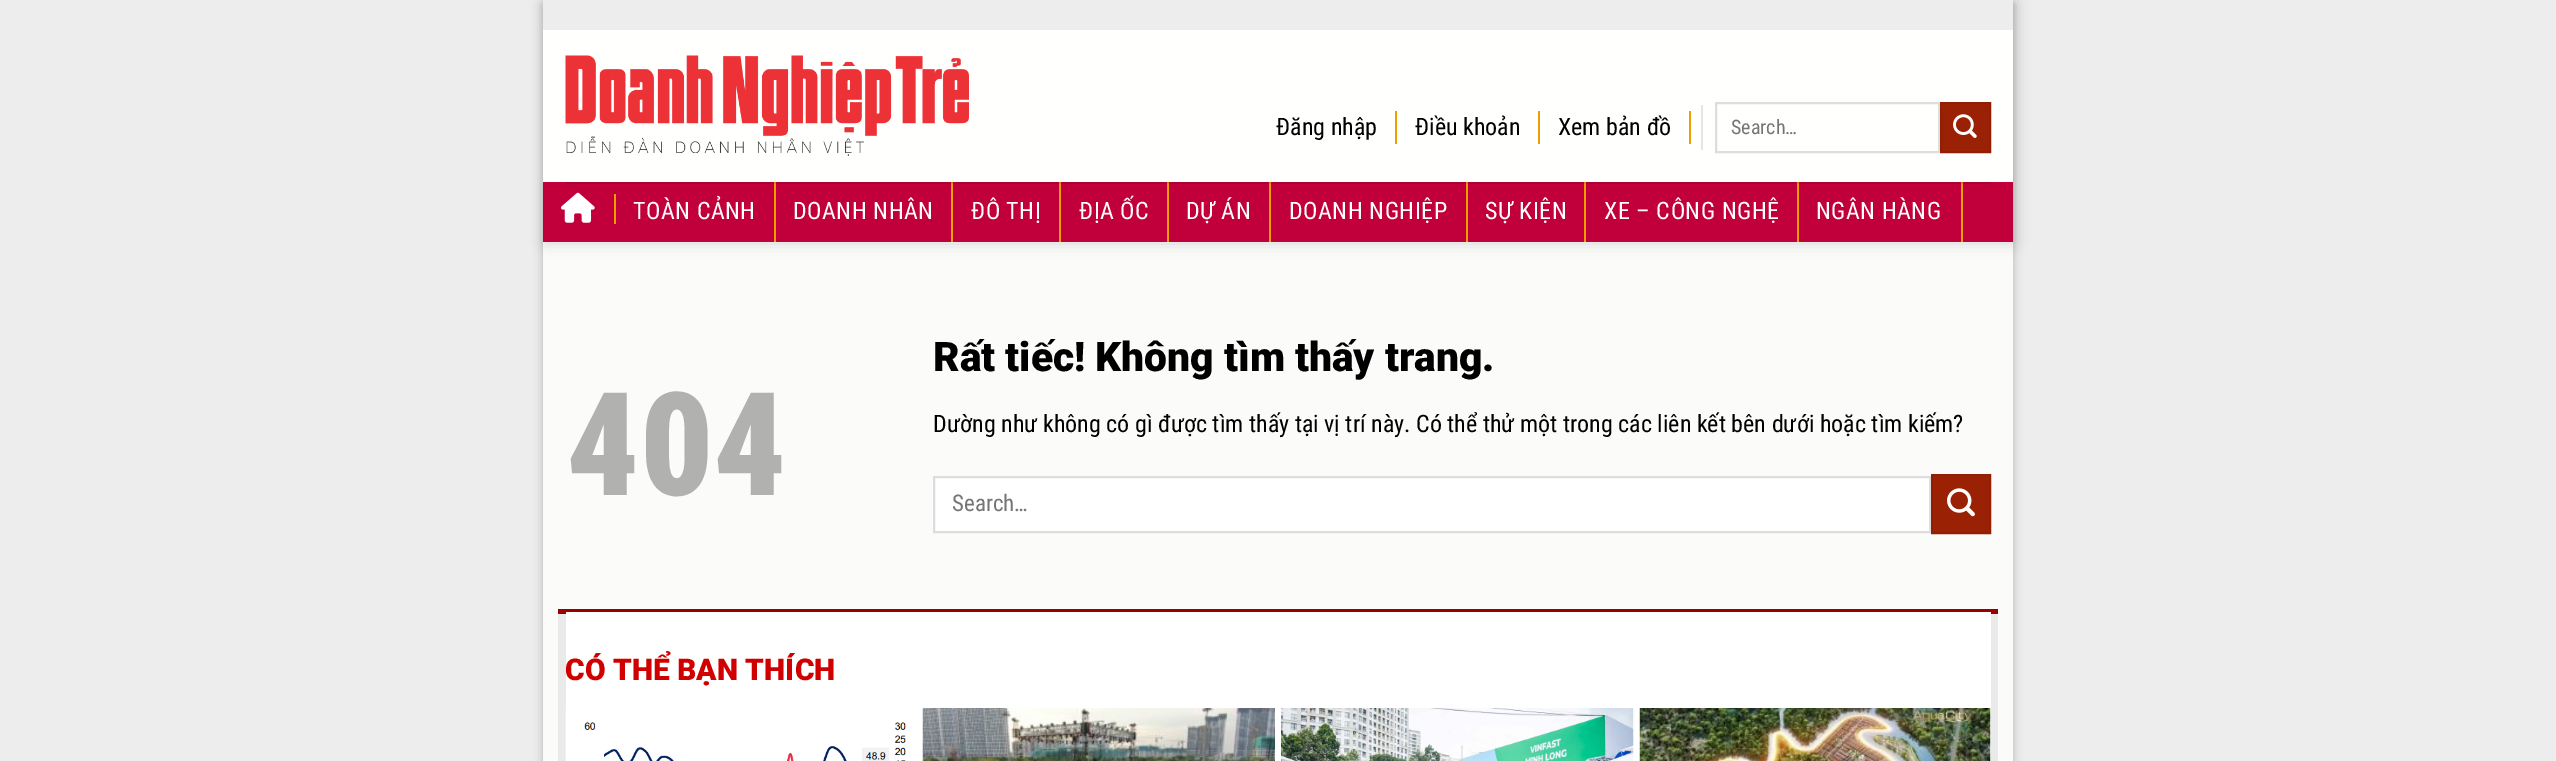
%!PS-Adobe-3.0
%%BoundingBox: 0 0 2556 761
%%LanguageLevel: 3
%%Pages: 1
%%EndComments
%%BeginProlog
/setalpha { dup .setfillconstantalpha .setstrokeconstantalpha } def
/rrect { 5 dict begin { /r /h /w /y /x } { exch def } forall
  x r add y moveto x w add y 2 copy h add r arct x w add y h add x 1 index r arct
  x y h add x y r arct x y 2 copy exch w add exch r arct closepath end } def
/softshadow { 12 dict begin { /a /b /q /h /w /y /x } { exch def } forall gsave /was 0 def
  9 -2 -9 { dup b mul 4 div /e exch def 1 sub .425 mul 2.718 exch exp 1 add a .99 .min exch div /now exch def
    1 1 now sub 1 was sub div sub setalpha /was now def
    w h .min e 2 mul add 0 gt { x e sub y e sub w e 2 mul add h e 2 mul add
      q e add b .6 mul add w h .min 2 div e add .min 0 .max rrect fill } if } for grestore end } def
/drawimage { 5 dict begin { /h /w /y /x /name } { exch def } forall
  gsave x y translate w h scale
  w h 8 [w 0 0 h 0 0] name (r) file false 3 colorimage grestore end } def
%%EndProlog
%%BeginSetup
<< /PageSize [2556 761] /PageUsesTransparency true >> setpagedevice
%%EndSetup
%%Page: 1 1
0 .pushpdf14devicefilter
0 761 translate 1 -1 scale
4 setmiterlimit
0.929 setgray
0 0 2556 761 rectfill
0 setgray
543 5 1470 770 0 4.5 0.23 softshadow
0.984 0.984 0.976 setrgbcolor
543 30 1470 731 rectfill
gsave
newpath 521 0 moveto 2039 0 lineto 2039 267 lineto 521 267 lineto closepath 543 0 moveto 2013 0 lineto 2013 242 lineto 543 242 lineto closepath eoclip newpath
0 setgray
545 2 1470 241 0 7.5 0.15 softshadow
grestore
0.929 setgray
543 0 1470 30 rectfill
0.9 setalpha
1 setgray
543 30 1470 152 rectfill
1 setalpha
(images/1.raw) 565 55 404 101 drawimage
0.922 0.624 0 setrgbcolor
1395 111 2 33 rectfill
1538 111 2 33 rectfill
1689 111 2 33 rectfill
0.898 setgray
1701 105 2 45 rectfill
0.867 setgray
2 setlinewidth
1716 103 223 49 rectstroke
0.604 0.129 0.012 setrgbcolor
newpath 1941 103 moveto 1990 103 lineto 1990 152 lineto 1941 152 lineto closepath gsave fill grestore
0.573 0.122 0.012 setrgbcolor
stroke
(images/2.raw) 1953 114 24 24 drawimage
0.757 0 0.231 setrgbcolor
543 182 1470 60 rectfill
0.922 0.624 0 setrgbcolor
774 182 2 60 rectfill
951 182 2 60 rectfill
1059 182 2 60 rectfill
1167 182 2 60 rectfill
1269 182 2 60 rectfill
1466 182 2 60 rectfill
1584 182 2 60 rectfill
1797 182 2 60 rectfill
1961 182 2 60 rectfill
0.1 setalpha
0 setgray
566 182 1425 2 rectfill
1 setalpha
0.922 0.624 0 setrgbcolor
614 194 2 30 rectfill
(images/3.raw) 561 192 34 31 drawimage
1 setgray
newpath 934 477 moveto 1930 477 lineto 1930 532 lineto 934 532 lineto closepath gsave fill grestore
0.867 setgray
stroke
0.604 0.129 0.012 setrgbcolor
newpath 1932 475 moveto 1990 475 lineto 1990 533 lineto 1932 533 lineto closepath gsave fill grestore
0.573 0.122 0.012 setrgbcolor
stroke
(images/4.raw) 1947 488 28 29 drawimage
0.918 setgray
558 614 1440 147 rectfill
0.608 0 0 setrgbcolor
558 609 1440 5 rectfill
1 setgray
566 612 1425 149 rectfill
(images/5.raw) 565 708 341 53 drawimage
(images/6.raw) 922 708 353 53 drawimage
(images/7.raw) 1281 708 353 53 drawimage
(images/8.raw) 1639 708 352 53 drawimage
/RobotoCondensed-Regular [24 0 0 -24 0 0] selectfont
0 setgray
1276 135 moveto (Đăng nhập) show
1415 135 moveto (Điều khoản) show
1558 135 moveto (Xem bản đồ) show
/RobotoCondensed-Regular [20 0 0 -20 0 0] selectfont
0.459 setgray
1731 134 moveto (Search…) show
/RobotoCondensed-Regular [24 0 0 -24 0 0] selectfont
1 setgray
633 219 moveto 0.5 0 (TOÀN CẢNH) ashow
793 219 moveto 0.5 0 (DOANH NHÂN) ashow
971 219 moveto 0.5 0 (ĐÔ THỊ) ashow
1079 219 moveto 0.5 0 (ĐỊA ỐC) ashow
1186 219 moveto 0.5 0 (DỰ ÁN) ashow
1289 219 moveto 0.5 0 (DOANH NGHIỆP) ashow
1485 219 moveto 0.5 0 (SỰ KIỆN) ashow
1604 219 moveto 0.5 0 (XE – CÔNG NGHỆ) ashow
1816 219 moveto 0.5 0 (NGÂN HÀNG) ashow
/RobotoCondensed-Black [144 0 0 -144 0 0] selectfont
0.694 0.694 0.69 setrgbcolor
566 495 moveto (404) show
/Roboto-Black [40.75 0 0 -40.75 0 0] selectfont
0 setgray
933 371 moveto (Rất tiếc! Không tìm thấy trang.) show
/RobotoCondensed-Regular [24 0 0 -24 0 0] selectfont
933 432 moveto (Dường như không có gì được tìm thấy tại vị trí này. Có thể thử một trong các liên kết bên dưới hoặc tìm kiếm?) show
/RobotoCondensed-Regular [23 0 0 -23 0 0] selectfont
0.459 setgray
952 511 moveto (Search…) show
/Roboto-Black [30 0 0 -30 0 0] selectfont
0.82 0 0 setrgbcolor
565 680 moveto (CÓ THỂ BẠN THÍCH) show
.poppdf14devicefilter showpage
%%EOF
